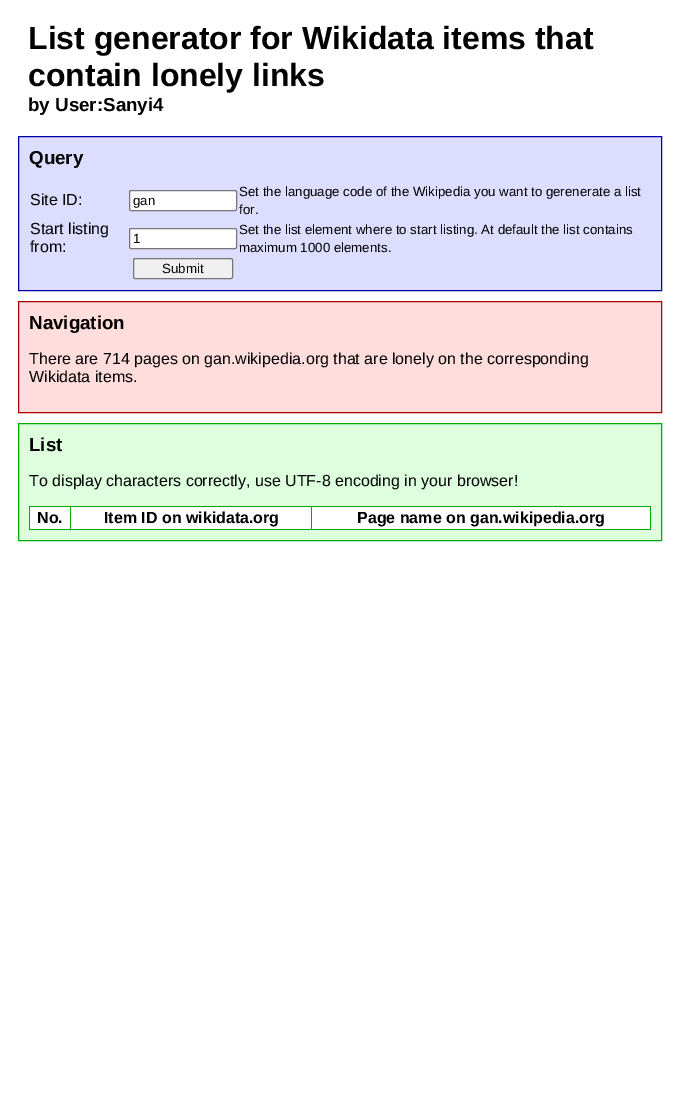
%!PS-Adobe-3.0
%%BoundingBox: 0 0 680 1105
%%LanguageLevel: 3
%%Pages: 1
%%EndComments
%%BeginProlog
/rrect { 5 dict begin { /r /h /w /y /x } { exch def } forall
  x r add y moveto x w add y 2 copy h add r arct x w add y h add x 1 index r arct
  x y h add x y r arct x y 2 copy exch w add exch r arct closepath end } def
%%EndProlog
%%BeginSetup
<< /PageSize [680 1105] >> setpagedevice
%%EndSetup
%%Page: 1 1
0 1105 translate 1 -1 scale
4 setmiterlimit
1 setgray
0 0 680 1105 rectfill
0.867 0.867 1 setrgbcolor
newpath 18.5 136.5 moveto 661.5 136.5 lineto 661.5 290.5 lineto 18.5 290.5 lineto closepath gsave fill grestore
0 0 0.667 setrgbcolor
stroke
1 setgray
129.5 190.5 107 20 1.5 rrect gsave fill grestore
0.463 setgray
stroke
1 setgray
129.5 228.5 107 20 1.5 rrect gsave fill grestore
0.463 setgray
stroke
0.937 setgray
133.5 258.5 99 20 1.5 rrect gsave fill grestore
0.463 setgray
stroke
1 0.867 0.867 setrgbcolor
newpath 18.5 301.5 moveto 661.5 301.5 lineto 661.5 412.5 lineto 18.5 412.5 lineto closepath gsave fill grestore
0.667 0 0 setrgbcolor
stroke
0.867 1 0.867 setrgbcolor
newpath 18.5 423.5 moveto 661.5 423.5 lineto 661.5 540.5 lineto 18.5 540.5 lineto closepath gsave fill grestore
0 0.667 0 setrgbcolor
stroke
1 setgray
30 507 620 22 rectfill
0 0.667 0 setrgbcolor
311 506 340 1 rectfill
650 506 1 24 rectfill
311 529 340 1 rectfill
311 506 1 24 rectfill
70 506 242 1 rectfill
70 529 242 1 rectfill
70 506 1 24 rectfill
29 506 42 1 rectfill
29 529 42 1 rectfill
29 506 1 24 rectfill
/LiberationSans-Bold [32 0 0 -32 0 0] selectfont
0 setgray
28 49 moveto (List generator for Wikidata items that) show
28 86 moveto (contain lonely links) show
/LiberationSans-Bold [18.75 0 0 -18.75 0 0] selectfont
28 111 moveto (by User:Sanyi4) show
29 164 moveto (Query) show
/LiberationSans-Regular [16 0 0 -16 0 0] selectfont
30 205 moveto (Site ID:) show
/LiberationSans-Regular [13.3 0 0 -13.3 0 0] selectfont
133 205 moveto (gan) show
239 196 moveto (Set the language code of the Wikipedia you want to gerenerate a list) show
239 214 moveto (for.) show
/LiberationSans-Regular [16 0 0 -16 0 0] selectfont
30 234 moveto (Start listing) show
30 252 moveto (from:) show
/LiberationSans-Regular [13.3 0 0 -13.3 0 0] selectfont
133 243 moveto (1) show
239 234 moveto (Set the list element where to start listing. At default the list contains) show
239 252 moveto (maximum 1000 elements.) show
162 273 moveto (Submit) show
/LiberationSans-Bold [18.75 0 0 -18.75 0 0] selectfont
29 329 moveto (Navigation) show
/LiberationSans-Regular [16 0 0 -16 0 0] selectfont
29 364 moveto (There are 714 pages on gan.wikipedia.org that are lonely on the corresponding) show
29 382 moveto (Wikidata items.) show
/LiberationSans-Bold [18.75 0 0 -18.75 0 0] selectfont
29 451 moveto (List) show
/LiberationSans-Regular [16 0 0 -16 0 0] selectfont
29 486 moveto (To display characters correctly, use UTF-8 encoding in your browser!) show
/LiberationSans-Bold [16 0 0 -16 0 0] selectfont
37 523 moveto (No.) show
104 523 moveto (Item ID on wikidata.org) show
357 523 moveto (Page name on gan.wikipedia.org) show
showpage
%%EOF
